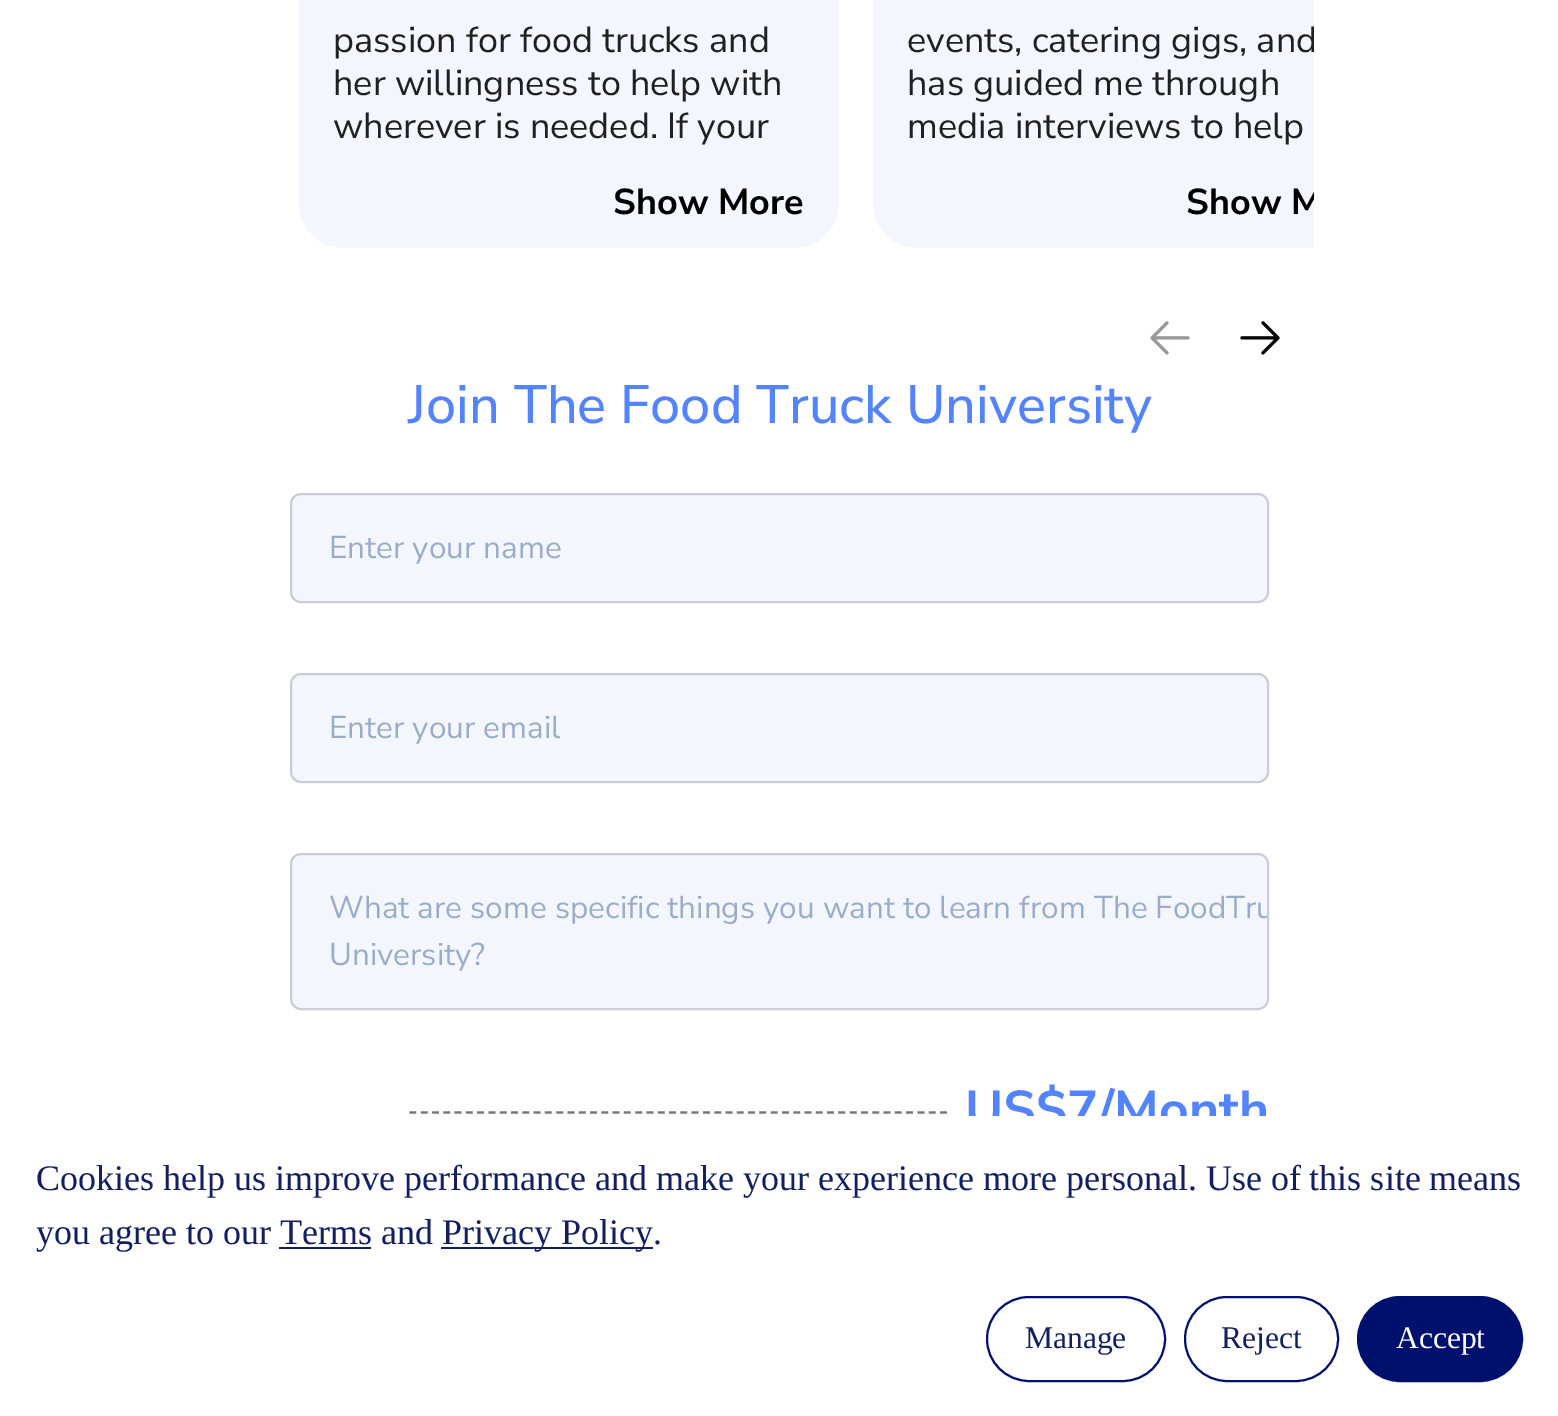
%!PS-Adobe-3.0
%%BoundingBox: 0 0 1558 1416
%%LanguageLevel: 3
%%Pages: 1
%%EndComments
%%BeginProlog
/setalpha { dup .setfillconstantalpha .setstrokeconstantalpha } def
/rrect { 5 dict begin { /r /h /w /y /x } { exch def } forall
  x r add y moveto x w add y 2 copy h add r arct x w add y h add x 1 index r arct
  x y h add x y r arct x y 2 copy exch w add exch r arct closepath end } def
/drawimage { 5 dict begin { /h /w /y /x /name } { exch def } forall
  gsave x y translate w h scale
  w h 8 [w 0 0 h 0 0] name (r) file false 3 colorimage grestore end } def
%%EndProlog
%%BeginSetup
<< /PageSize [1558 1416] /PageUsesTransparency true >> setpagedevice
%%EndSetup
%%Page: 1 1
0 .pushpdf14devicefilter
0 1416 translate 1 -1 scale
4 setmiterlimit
1 setgray
0 0 1558 1416 rectfill
0.953 0.965 0.992 setrgbcolor
299 -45 540 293 45 rrect fill
newpath 918 -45 moveto 1314 -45 lineto 1314 248 lineto 918 248 lineto 893 248 873 228 873 203 curveto 873 0 lineto 873 -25 893 -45 918 -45 curveto closepath fill
(images/1.raw) 1150 321 40 34 drawimage
(images/2.raw) 1240 321 40 34 drawimage
290 493 979 110 11 rrect fill
0.2 setalpha
0.161 0.165 0.2 setrgbcolor
2 setlinewidth
291 494 977 108 10 rrect stroke
1 setalpha
0.953 0.965 0.992 setrgbcolor
290 673 979 110 11 rrect fill
0.2 setalpha
0.161 0.165 0.2 setrgbcolor
291 674 977 108 10 rrect stroke
1 setalpha
0.953 0.965 0.992 setrgbcolor
290 853 979 157 11 rrect fill
0.2 setalpha
0.161 0.165 0.2 setrgbcolor
291 854 977 155 10 rrect stroke
1 setalpha
0.467 setgray
2.2 setlinewidth
[6.75 4.54] 0 setdash
newpath 409.5 1112.5 moveto 947 1112.5 lineto stroke
0.075 0.122 0.376 setrgbcolor
441 1247 212 2 rectfill
279 1247 92 2 rectfill
0 0.063 0.427 setrgbcolor
2 setlinewidth
[] 0 setdash
987 1297 178 84 42 rrect stroke
1185 1297 153 84 42 rrect stroke
1358 1297 164 84 42 rrect gsave fill grestore
stroke
/NunitoSans-Regular [36 0 0 -36 0 0] selectfont
0.125 0.125 0.129 setrgbcolor
333 52 moveto (passion for food trucks and) show
333 95 moveto (her willingness to help with) show
333 138 moveto (wherever is needed. If your) show
/NunitoSans-Bold [36 0 0 -36 0 0] selectfont
0 setgray
613 214 moveto (Show More) show
gsave
907 0 407 149 rectclip
/NunitoSans-Regular [36 0 0 -36 0 0] selectfont
0.125 0.125 0.129 setrgbcolor
907 52 moveto (events, catering gigs, and) show
grestore
/NunitoSans-Regular [36 0 0 -36 0 0] selectfont
0.125 0.125 0.129 setrgbcolor
907 95 moveto (has guided me through) show
907 138 moveto (media interviews to help) show
gsave
245 0 1069 302 rectclip
/NunitoSans-Bold [36 0 0 -36 0 0] selectfont
0 setgray
1186 214 moveto (Show M) show
grestore
/NunitoSans-Medium [54 0 0 -54 0 0] selectfont
0.325 0.514 1 setrgbcolor
408 423 moveto (Join The Food Truck University) show
/NunitoSans-Regular [31.5 0 0 -31.5 0 0] selectfont
0.608 0.675 0.784 setrgbcolor
329 558 moveto (Enter your name) show
329 738 moveto (Enter your email) show
329 918 moveto (What are some specific things you want to learn from The Food) show
gsave
293 855 974 153 9 rrect clip newpath
1226 918 moveto (Tru) show
grestore
329 965 moveto (University?) show
/NunitoSans-Bold [51.75 0 0 -51.75 0 0] selectfont
0.325 0.514 1 setrgbcolor
965 1127 moveto (US$7/Month) show
1 setgray
968 1116 298 17 rectfill
/LiberationSerif-Regular [36 0 0 -36 0 0] selectfont
0.075 0.122 0.376 setrgbcolor
36 1190 moveto (Cookies help us improve performance and make your experience more personal. Use of this site means) show
36 1244 moveto (you agree to our Terms and) show
442 1244 moveto (Privacy Policy.) show
/LiberationSerif-Regular [31.5 0 0 -31.5 0 0] selectfont
1025 1348 moveto (Manage) show
1221 1348 moveto (Reject) show
1 setgray
1396 1348 moveto (Accept) show
.poppdf14devicefilter showpage
%%EOF
